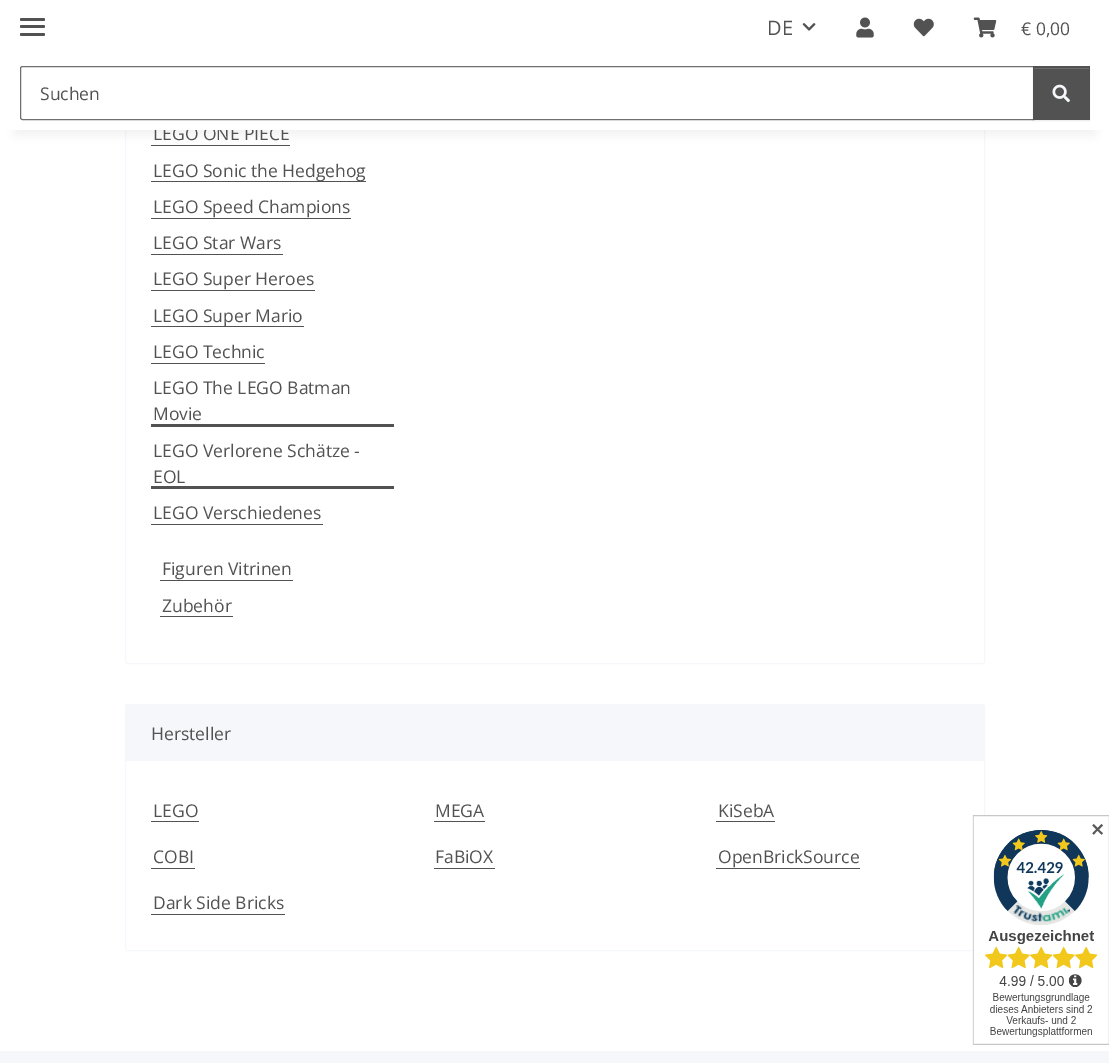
%!PS-Adobe-3.0
%%BoundingBox: 0 0 1109 1063
%%LanguageLevel: 3
%%Pages: 1
%%EndComments
%%BeginProlog
/setalpha { dup .setfillconstantalpha .setstrokeconstantalpha } def
/rrect { 5 dict begin { /r /h /w /y /x } { exch def } forall
  x r add y moveto x w add y 2 copy h add r arct x w add y h add x 1 index r arct
  x y h add x y r arct x y 2 copy exch w add exch r arct closepath end } def
/softshadow { 12 dict begin { /a /b /q /h /w /y /x } { exch def } forall gsave /was 0 def
  9 -2 -9 { dup b mul 4 div /e exch def 1 sub .425 mul 2.718 exch exp 1 add a .99 .min exch div /now exch def
    1 1 now sub 1 was sub div sub setalpha /was now def
    w h .min e 2 mul add 0 gt { x e sub y e sub w e 2 mul add h e 2 mul add
      q e add b .6 mul add w h .min 2 div e add .min 0 .max rrect fill } if } for grestore end } def
/drawimage { 5 dict begin { /h /w /y /x /name } { exch def } forall
  gsave x y translate w h scale
  w h 8 [w 0 0 h 0 0] name (r) file false 3 colorimage grestore end } def
%%EndProlog
%%BeginSetup
<< /PageSize [1109 1063] /PageUsesTransparency true >> setpagedevice
%%EndSetup
%%Page: 1 1
0 .pushpdf14devicefilter
0 1063 translate 1 -1 scale
4 setmiterlimit
0.961 0.969 0.98 setrgbcolor
0 0 1109 1063 rectfill
1 setgray
0 130 1109 921 rectfill
0.961 0.969 0.98 setrgbcolor
125.5 -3.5 859 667 2 rrect stroke
0.322 setgray
151 145 139 1 rectfill
0 setgray
15 35 1080 100 0 5.5 0.06 softshadow
0.322 setgray
151 181 215 1 rectfill
151 218 200 1 rectfill
151 254 132 1 rectfill
151 290 164 1 rectfill
151 326 153 1 rectfill
151 363 114 1 rectfill
151 424 243 3 rectfill
151 486 243 3 rectfill
151 524 172 1 rectfill
160 580 133 1 rectfill
160 616 73 1 rectfill
0.961 0.969 0.98 setrgbcolor
125.5 704.5 859 246 2 rrect stroke
newpath 127 705 moveto 983 705 lineto 983.5 705 984 705.5 984 706 curveto 984 761 lineto 126 761 lineto 126 706 lineto 126 705.5 126.5 705 127 705 curveto closepath fill
0.322 setgray
151 821 48 1 rectfill
434 821 51 1 rectfill
716 821 59 1 rectfill
151 868 44 1 rectfill
434 868 61 1 rectfill
716 868 144 1 rectfill
151 914 134 1 rectfill
(images/6.raw) 972 815 137 230 drawimage
/OpenSans-Regular [17.5 0 0 -17.5 0 0] selectfont
153 140 moveto (LEGO ONE PIECE) show
1 setgray
0 0 1109 130 rectfill
0.439 setgray
newpath 22.5 66.5 moveto 1033.5 66.5 lineto 1033.5 119.5 lineto 22.5 119.5 lineto 21.5 119.5 20.5 118.5 20.5 117.5 curveto 20.5 68.5 lineto 20.5 67.5 21.5 66.5 22.5 66.5 curveto closepath stroke
0 setgray
1033 68 57 53 0 0.5 0.07 softshadow
0.322 setgray
1033 66 57 54 rectfill
(images/5.raw) 1052 84 18 19 drawimage
0.424 setgray
1034 68 55 1 rectfill
0.322 setgray
40 100 moveto (Suchen) show
(images/4.raw) 973 17 24 21 drawimage
(images/3.raw) 913 18 21 19 drawimage
(images/1.raw) 802 23 14 8 drawimage
20 33 25 3 1.5 rrect fill
20 18 25 3 1.5 rrect fill
20 25 25 3 1.5 rrect fill
1021 35 moveto (€ 0,00) show
(images/2.raw) 856 17 18 21 drawimage
/OpenSans-Regular [20 0 0 -20 0 0] selectfont
767 35 moveto (DE) show
/OpenSans-Regular [17.5 0 0 -17.5 0 0] selectfont
153 177 moveto (LEGO Sonic the Hedgehog) show
153 213 moveto (LEGO Speed Champions) show
153 249 moveto (LEGO Star Wars) show
153 285 moveto (LEGO Super Heroes) show
153 322 moveto (LEGO Super Mario) show
153 358 moveto (LEGO Technic) show
153 394 moveto (LEGO The LEGO Batman) show
153 420 moveto (Movie) show
153 457 moveto (LEGO Verlorene Schätze -) show
153 483 moveto (EOL) show
153 519 moveto (LEGO Verschiedenes) show
162 575 moveto (Figuren Vitrinen) show
162 612 moveto (Zubehör) show
151 740 moveto (Hersteller) show
153 817 moveto (LEGO) show
435 817 moveto (MEGA) show
718 817 moveto (KiSebA) show
153 863 moveto (COBI) show
435 863 moveto (FaBiOX) show
718 863 moveto (OpenBrickSource) show
153 909 moveto (Dark Side Bricks) show
/DejaVuSans-Bold [17.5 0 0 -17.5 0 0] selectfont
0.349 setgray
1090 836 moveto (✕) show
.poppdf14devicefilter showpage
%%EOF
